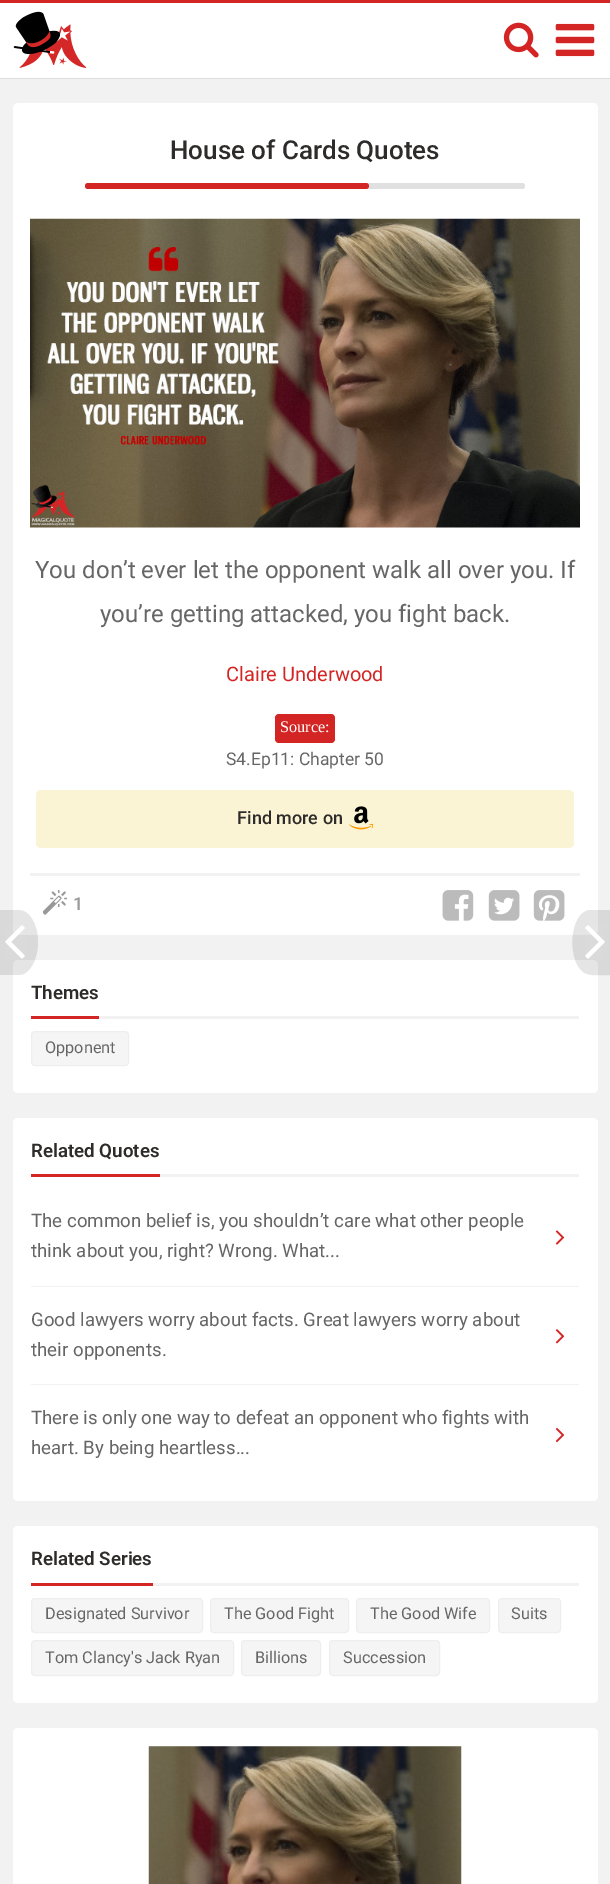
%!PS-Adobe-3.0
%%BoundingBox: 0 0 610 1884
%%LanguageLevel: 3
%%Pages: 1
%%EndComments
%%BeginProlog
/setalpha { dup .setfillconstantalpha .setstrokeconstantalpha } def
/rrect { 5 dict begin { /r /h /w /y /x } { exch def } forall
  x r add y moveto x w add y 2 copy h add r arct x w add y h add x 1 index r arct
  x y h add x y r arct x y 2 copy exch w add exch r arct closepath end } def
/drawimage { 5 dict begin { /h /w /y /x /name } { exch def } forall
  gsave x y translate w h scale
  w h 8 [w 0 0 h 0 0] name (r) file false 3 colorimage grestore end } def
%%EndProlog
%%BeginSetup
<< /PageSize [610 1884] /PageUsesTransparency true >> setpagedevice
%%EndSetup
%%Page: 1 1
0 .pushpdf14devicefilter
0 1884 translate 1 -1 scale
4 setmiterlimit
0.949 setgray
0 0 610 1884 rectfill
1 setgray
0 3 610 75 rectfill
0.831 0.145 0.145 setrgbcolor
0 0 610 3 rectfill
0.867 setgray
0 78 610 1 rectfill
(images/1.raw) 13 11 74 57 drawimage
(images/2.raw) 503 22 36 36 drawimage
(images/3.raw) 555 23 40 34 drawimage
1 setgray
13 103 585 832 5 rrect fill
0.878 setgray
85 183 440 6 3 rrect fill
0.831 0.145 0.145 setrgbcolor
85 183 284 6 3 rrect fill
1 setgray
13 960 585 133 5 rrect fill
0.1 setalpha
0 setgray
newpath 0 910 moveto 19 910 lineto 29 910 38 924 38 942 curveto 38 960 29 975 19 975 curveto 0 975 lineto closepath fill
1 setalpha
(images/4.raw) 5 925 20 34 drawimage
0.1 setalpha
newpath 591 910 moveto 610 910 lineto 610 975 lineto 604 975 592 976 587 974 curveto 566 967 568 910 591 910 curveto closepath fill
1 setalpha
(images/5.raw) 585 925 20 34 drawimage
(images/6.raw) 30 218 550 310 drawimage
0.831 0.145 0.145 setrgbcolor
275 714 60 29 4 rrect fill
0.98 0.953 0.831 setrgbcolor
36 790 538 58 5 rrect fill
(images/7.raw) 349 806 24 24 drawimage
0.949 setgray
30 873 550 3 rectfill
(images/8.raw) 43 890 24 25 drawimage
(images/9.raw) 442 890 32 31 drawimage
(images/10.raw) 488 890 32 31 drawimage
(images/11.raw) 533 890 32 31 drawimage
99 1016 480 3 rectfill
0.831 0.145 0.145 setrgbcolor
31 1016 68 3 rectfill
0.961 setgray
31.5 1031.5 97 34 3.5 rrect gsave fill grestore
0.933 setgray
stroke
1 setgray
13 1118 585 383 5 rrect fill
0.949 setgray
160 1174 419 3 rectfill
0.831 0.145 0.145 setrgbcolor
31 1174 129 3 rectfill
0.949 setgray
31 1286 548 1 rectfill
(images/12.raw) 555 1230 10 15 drawimage
31 1384 548 1 rectfill
(images/13.raw) 555 1329 10 15 drawimage
(images/14.raw) 555 1427 10 16 drawimage
1 setgray
13 1526 585 177 5 rrect fill
0.949 setgray
153 1583 426 3 rectfill
0.831 0.145 0.145 setrgbcolor
31 1583 122 3 rectfill
0.961 setgray
31.5 1598.5 171 34 3.5 rrect gsave fill grestore
0.933 setgray
stroke
0.961 setgray
210.5 1598.5 138 34 3.5 rrect gsave fill grestore
0.933 setgray
stroke
0.961 setgray
356.5 1598.5 133 34 3.5 rrect gsave fill grestore
0.933 setgray
stroke
0.961 setgray
498.5 1598.5 62 34 3.5 rrect gsave fill grestore
0.933 setgray
stroke
0.961 setgray
31.5 1640.5 202 35 3.5 rrect gsave fill grestore
0.933 setgray
stroke
0.961 setgray
241.5 1640.5 79 35 3.5 rrect gsave fill grestore
0.933 setgray
stroke
0.961 setgray
329.5 1640.5 110 35 3.5 rrect gsave fill grestore
0.933 setgray
stroke
1 setgray
13 1728 585 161 5 rrect fill
(images/15.raw) 148 1746 314 138 drawimage
/Roboto-Medium [26 0 0 -26 0 0] selectfont
0.176 0.173 0.165 setrgbcolor
170 159 moveto (House of Cards Quotes) show
/Roboto-Regular [24 0 0 -24 0 0] selectfont
0.4 setgray
35 578 moveto (You don’t ever let the opponent walk all over you. If) show
100 622 moveto (you’re getting attacked, you fight back.) show
/Roboto-Regular [20 0 0 -20 0 0] selectfont
0.831 0.145 0.145 setrgbcolor
226 681 moveto (Claire Underwood) show
/LiberationSerif-Regular [16.25 0 0 -16.25 0 0] selectfont
1 setgray
280 732 moveto (Source:) show
/Roboto-Regular [17.5 0 0 -17.5 0 0] selectfont
0.4 setgray
226 765 moveto (S4.Ep11: Chapter 50) show
/Roboto-Medium [18 0 0 -18 0 0] selectfont
0.176 0.173 0.165 setrgbcolor
237 824 moveto (Find more on) show
0.6 setgray
73 910 moveto (1) show
/Roboto-SemiBold [18.7 0 0 -18.7 0 0] selectfont
0.176 0.173 0.165 setrgbcolor
31 999 moveto (Themes) show
/Roboto-Regular [16.25 0 0 -16.25 0 0] selectfont
0.4 setgray
45 1053 moveto (Opponent) show
/Roboto-SemiBold [18.7 0 0 -18.7 0 0] selectfont
0.176 0.173 0.165 setrgbcolor
31 1157 moveto (Related Quotes) show
/Roboto-Regular [18.7 0 0 -18.7 0 0] selectfont
0.4 setgray
31 1227 moveto (The common belief is, you shouldn’t care what other people) show
31 1257 moveto (think about you, right? Wrong. What...) show
31 1326 moveto (Good lawyers worry about facts. Great lawyers worry about) show
31 1356 moveto (their opponents.) show
31 1424 moveto (There is only one way to defeat an opponent who fights with) show
31 1454 moveto (heart. By being heartless...) show
/Roboto-SemiBold [18.7 0 0 -18.7 0 0] selectfont
0.176 0.173 0.165 setrgbcolor
31 1565 moveto (Related Series) show
/Roboto-Regular [16.25 0 0 -16.25 0 0] selectfont
0.4 setgray
45 1619 moveto (Designated Survivor) show
224 1619 moveto (The Good Fight) show
370 1619 moveto (The Good Wife) show
511 1619 moveto (Suits) show
45 1663 moveto (Tom Clancy's Jack Ryan) show
255 1663 moveto (Billions) show
343 1663 moveto (Succession) show
.poppdf14devicefilter showpage
%%EOF
